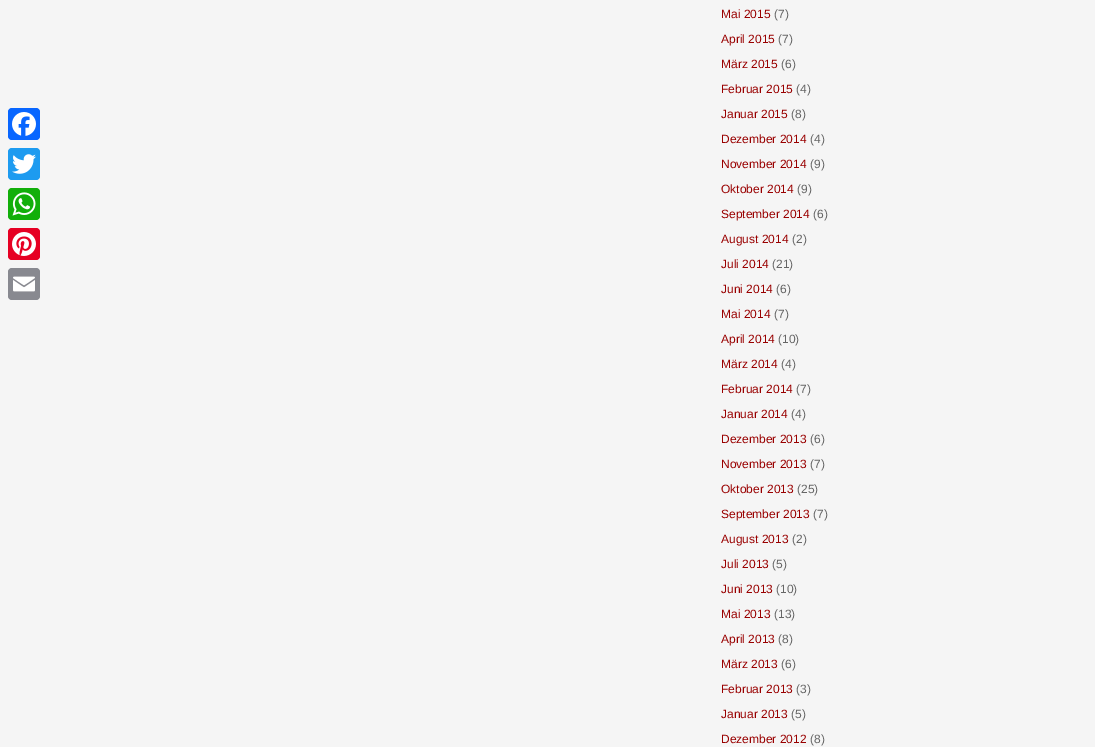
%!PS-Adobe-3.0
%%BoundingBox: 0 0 1095 747
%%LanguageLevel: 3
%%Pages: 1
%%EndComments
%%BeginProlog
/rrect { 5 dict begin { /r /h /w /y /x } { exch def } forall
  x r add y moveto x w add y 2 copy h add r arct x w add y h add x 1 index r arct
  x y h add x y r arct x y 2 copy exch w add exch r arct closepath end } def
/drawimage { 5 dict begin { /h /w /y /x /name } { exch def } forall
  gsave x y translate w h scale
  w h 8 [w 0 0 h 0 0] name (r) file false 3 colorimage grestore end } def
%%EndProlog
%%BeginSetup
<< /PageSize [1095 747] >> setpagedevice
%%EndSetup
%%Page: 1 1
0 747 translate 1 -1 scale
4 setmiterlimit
0.961 setgray
0 0 1095 747 rectfill
0.031 0.4 1 setrgbcolor
8 108 32 32 4 rrect fill
(images/1.raw) 12 112 24 24 drawimage
0.114 0.608 0.941 setrgbcolor
8 148 32 32 4 rrect fill
(images/2.raw) 12 154 24 20 drawimage
0.071 0.686 0.039 setrgbcolor
8 188 32 32 4 rrect fill
(images/3.raw) 12 192 24 24 drawimage
0.902 0 0.137 setrgbcolor
8 228 32 32 4 rrect fill
(images/4.raw) 12 232 24 24 drawimage
0.533 0.537 0.565 setrgbcolor
8 268 32 32 4 rrect fill
(images/5.raw) 13 276 22 16 drawimage
/LiberationSans-Regular [12 0 0 -12 0 0] selectfont
0.6 0 0 setrgbcolor
721 18 moveto (Mai 2015) show
0.4 setgray
774 18 moveto (\(7\)) show
0.6 0 0 setrgbcolor
721 43 moveto (April 2015) show
0.4 setgray
778 43 moveto (\(7\)) show
0.6 0 0 setrgbcolor
721 68 moveto (März 2015) show
0.4 setgray
781 68 moveto (\(6\)) show
0.6 0 0 setrgbcolor
721 93 moveto (Februar 2015) show
0.4 setgray
796 93 moveto (\(4\)) show
0.6 0 0 setrgbcolor
721 118 moveto (Januar 2015) show
0.4 setgray
791 118 moveto (\(8\)) show
0.6 0 0 setrgbcolor
721 143 moveto (Dezember 2014) show
0.4 setgray
810 143 moveto (\(4\)) show
0.6 0 0 setrgbcolor
721 168 moveto (November 2014) show
0.4 setgray
810 168 moveto (\(9\)) show
0.6 0 0 setrgbcolor
721 193 moveto (Oktober 2014) show
0.4 setgray
797 193 moveto (\(9\)) show
0.6 0 0 setrgbcolor
721 218 moveto (September 2014) show
0.4 setgray
813 218 moveto (\(6\)) show
0.6 0 0 setrgbcolor
721 243 moveto (August 2014) show
0.4 setgray
792 243 moveto (\(2\)) show
0.6 0 0 setrgbcolor
721 268 moveto (Juli 2014) show
0.4 setgray
772 268 moveto (\(21\)) show
0.6 0 0 setrgbcolor
721 293 moveto (Juni 2014) show
0.4 setgray
776 293 moveto (\(6\)) show
0.6 0 0 setrgbcolor
721 318 moveto (Mai 2014) show
0.4 setgray
774 318 moveto (\(7\)) show
0.6 0 0 setrgbcolor
721 343 moveto (April 2014) show
0.4 setgray
778 343 moveto (\(10\)) show
0.6 0 0 setrgbcolor
721 368 moveto (März 2014) show
0.4 setgray
781 368 moveto (\(4\)) show
0.6 0 0 setrgbcolor
721 393 moveto (Februar 2014) show
0.4 setgray
796 393 moveto (\(7\)) show
0.6 0 0 setrgbcolor
721 418 moveto (Januar 2014) show
0.4 setgray
791 418 moveto (\(4\)) show
0.6 0 0 setrgbcolor
721 443 moveto (Dezember 2013) show
0.4 setgray
810 443 moveto (\(6\)) show
0.6 0 0 setrgbcolor
721 468 moveto (November 2013) show
0.4 setgray
810 468 moveto (\(7\)) show
0.6 0 0 setrgbcolor
721 493 moveto (Oktober 2013) show
0.4 setgray
797 493 moveto (\(25\)) show
0.6 0 0 setrgbcolor
721 518 moveto (September 2013) show
0.4 setgray
813 518 moveto (\(7\)) show
0.6 0 0 setrgbcolor
721 543 moveto (August 2013) show
0.4 setgray
792 543 moveto (\(2\)) show
0.6 0 0 setrgbcolor
721 568 moveto (Juli 2013) show
0.4 setgray
772 568 moveto (\(5\)) show
0.6 0 0 setrgbcolor
721 593 moveto (Juni 2013) show
0.4 setgray
776 593 moveto (\(10\)) show
0.6 0 0 setrgbcolor
721 618 moveto (Mai 2013) show
0.4 setgray
774 618 moveto (\(13\)) show
0.6 0 0 setrgbcolor
721 643 moveto (April 2013) show
0.4 setgray
778 643 moveto (\(8\)) show
0.6 0 0 setrgbcolor
721 668 moveto (März 2013) show
0.4 setgray
781 668 moveto (\(6\)) show
0.6 0 0 setrgbcolor
721 693 moveto (Februar 2013) show
0.4 setgray
796 693 moveto (\(3\)) show
0.6 0 0 setrgbcolor
721 718 moveto (Januar 2013) show
0.4 setgray
791 718 moveto (\(5\)) show
0.6 0 0 setrgbcolor
721 743 moveto (Dezember 2012) show
0.4 setgray
810 743 moveto (\(8\)) show
showpage
%%EOF
